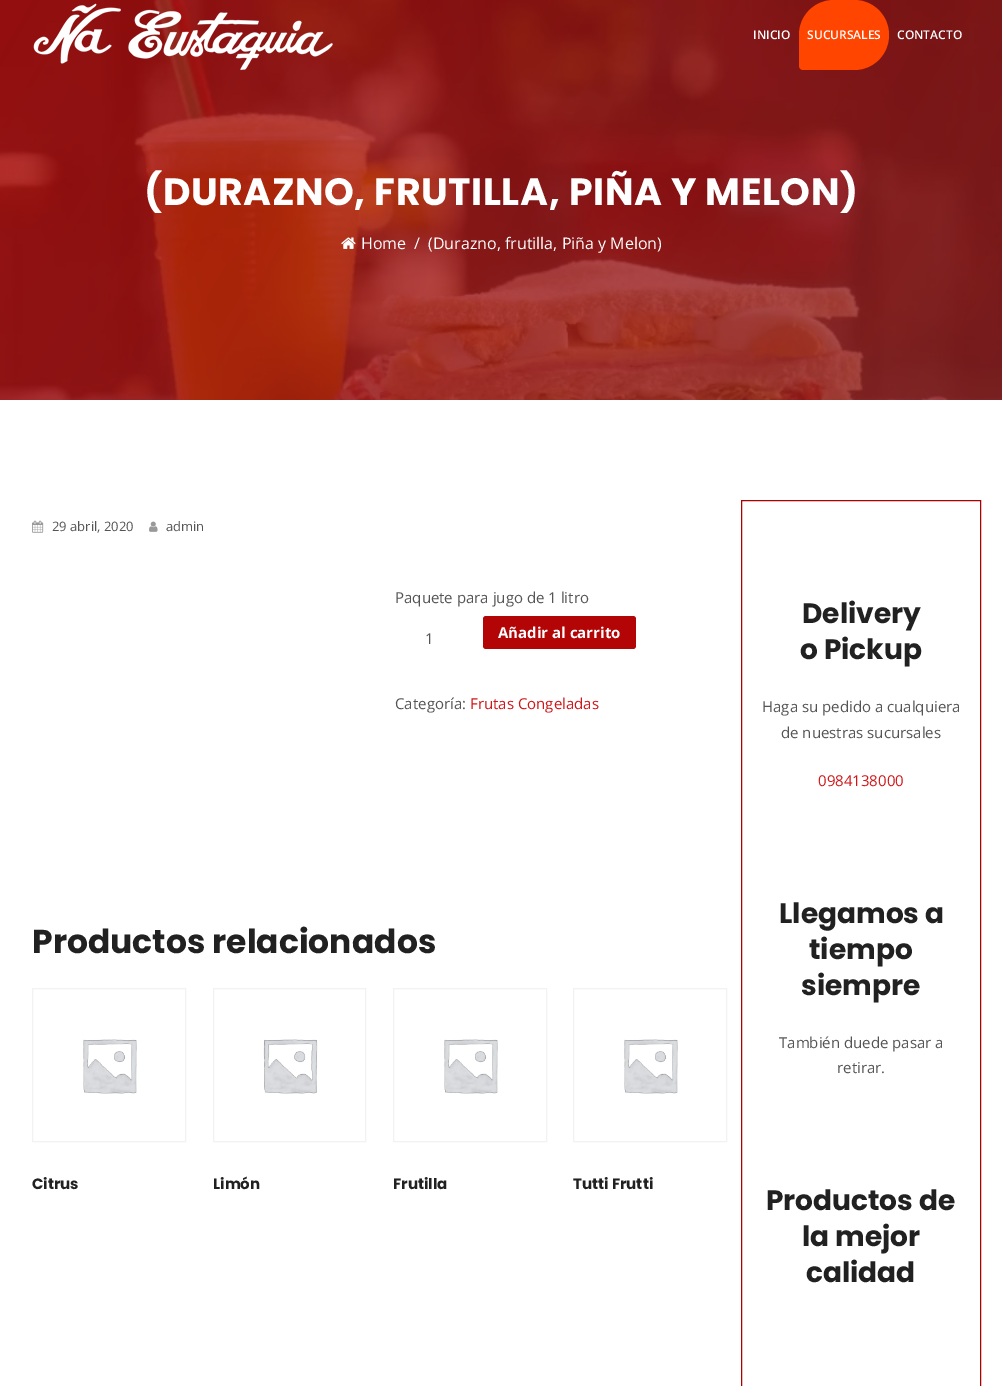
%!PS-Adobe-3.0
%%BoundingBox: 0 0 1002 1386
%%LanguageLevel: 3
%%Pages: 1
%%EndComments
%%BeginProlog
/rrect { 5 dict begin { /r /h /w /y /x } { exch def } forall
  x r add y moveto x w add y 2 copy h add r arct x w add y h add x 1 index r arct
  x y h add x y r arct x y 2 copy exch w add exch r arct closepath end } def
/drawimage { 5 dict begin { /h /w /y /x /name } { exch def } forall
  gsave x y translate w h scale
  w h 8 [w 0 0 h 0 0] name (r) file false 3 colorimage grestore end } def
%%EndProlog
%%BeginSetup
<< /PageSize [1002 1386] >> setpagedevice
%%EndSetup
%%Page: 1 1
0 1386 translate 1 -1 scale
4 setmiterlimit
1 setgray
0 0 1002 1386 rectfill
(images/2.raw) 0 0 1002 400 drawimage
(images/1.raw) 33 3 300 68 drawimage
1 0.271 0 setrgbcolor
newpath 834 0 moveto 854 0 lineto 873.5 0 889 15.5 889 35 curveto 889 54.5 873.5 70 854 70 curveto 803 70 lineto 801 70 799 68 799 66 curveto 799 35 lineto 799 15.5 814.5 0 834 0 curveto closepath fill
(images/3.raw) 341 237 15 12 drawimage
(images/4.raw) 32 520 12 13 drawimage
(images/5.raw) 149 521 9 11 drawimage
0.702 0.016 0.024 setrgbcolor
483 616 153 33 3 rrect fill
0.949 setgray
32.5 988.5 153 153 rectstroke
(images/6.raw) 83 1039 54 55 drawimage
213.5 988.5 152 153 rectstroke
(images/7.raw) 263 1039 55 55 drawimage
393.5 988.5 153 153 rectstroke
(images/8.raw) 444 1039 54 55 drawimage
573.5 988.5 153 153 rectstroke
(images/9.raw) 624 1039 54 55 drawimage
0.667 0 0 setrgbcolor
741.5 500.5 239 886 rectstroke
/OpenSans-SemiBold [12 0 0 -12 0 0] selectfont
1 setgray
753 39 moveto (INICIO) show
807 39 moveto (SUCURSALES) show
897 39 moveto (CONTACTO) show
/Poppins-Bold [38 0 0 -38 0 0] selectfont
144 205 moveto 0.5 0 (\(DURAZNO, FRUTILLA, PIÑA Y MELON\)) ashow
/OpenSans-Regular [16 0 0 -16 0 0] selectfont
361 249 moveto (Home) show
414 249 moveto (/) show
428 249 moveto (\(Durazno, frutilla, Piña y Melon\)) show
/OpenSans-Regular [13 0 0 -13 0 0] selectfont
0.333 setgray
52 531 moveto (29 abril, 2020) show
166 531 moveto (admin) show
/OpenSans-Regular [15 0 0 -15 0 0] selectfont
395 603 moveto (Paquete para jugo de 1 litro) show
425 644 moveto (1) show
/OpenSans-Bold [15 0 0 -15 0 0] selectfont
1 setgray
498 638 moveto (Añadir al carrito) show
/OpenSans-Regular [15 0 0 -15 0 0] selectfont
0.333 setgray
395 709 moveto (Categoría:) show
0.812 0.086 0.094 setrgbcolor
470 709 moveto (Frutas Congeladas) show
/Poppins-Bold [33 0 0 -33 0 0] selectfont
0.129 setgray
32 953 moveto (Productos relacionados) show
/Poppins-Bold [15 0 0 -15 0 0] selectfont
32 1189 moveto (Citrus) show
213 1189 moveto (Limón) show
393 1189 moveto (Frutilla) show
573 1189 moveto (Tutti Frutti) show
/Poppins-Bold [28 0 0 -28 0 0] selectfont
802 623 moveto (Delivery) show
800 659 moveto (o Pickup) show
/OpenSans-Regular [15 0 0 -15 0 0] selectfont
0.333 setgray
762 712 moveto (Haga su pedido a cualquiera) show
781 738 moveto (de nuestras sucursales) show
0.812 0.086 0.094 setrgbcolor
818 786 moveto (0984138000) show
/Poppins-Bold [28 0 0 -28 0 0] selectfont
0.129 setgray
779 923 moveto (Llegamos a) show
809 959 moveto (tiempo) show
801 995 moveto (siempre) show
/OpenSans-Regular [15 0 0 -15 0 0] selectfont
0.333 setgray
779 1048 moveto (También duede pasar a) show
837 1073 moveto (retirar.) show
/Poppins-Bold [28 0 0 -28 0 0] selectfont
0.129 setgray
766 1210 moveto (Productos de) show
802 1246 moveto (la mejor) show
806 1282 moveto (calidad) show
showpage
%%EOF
